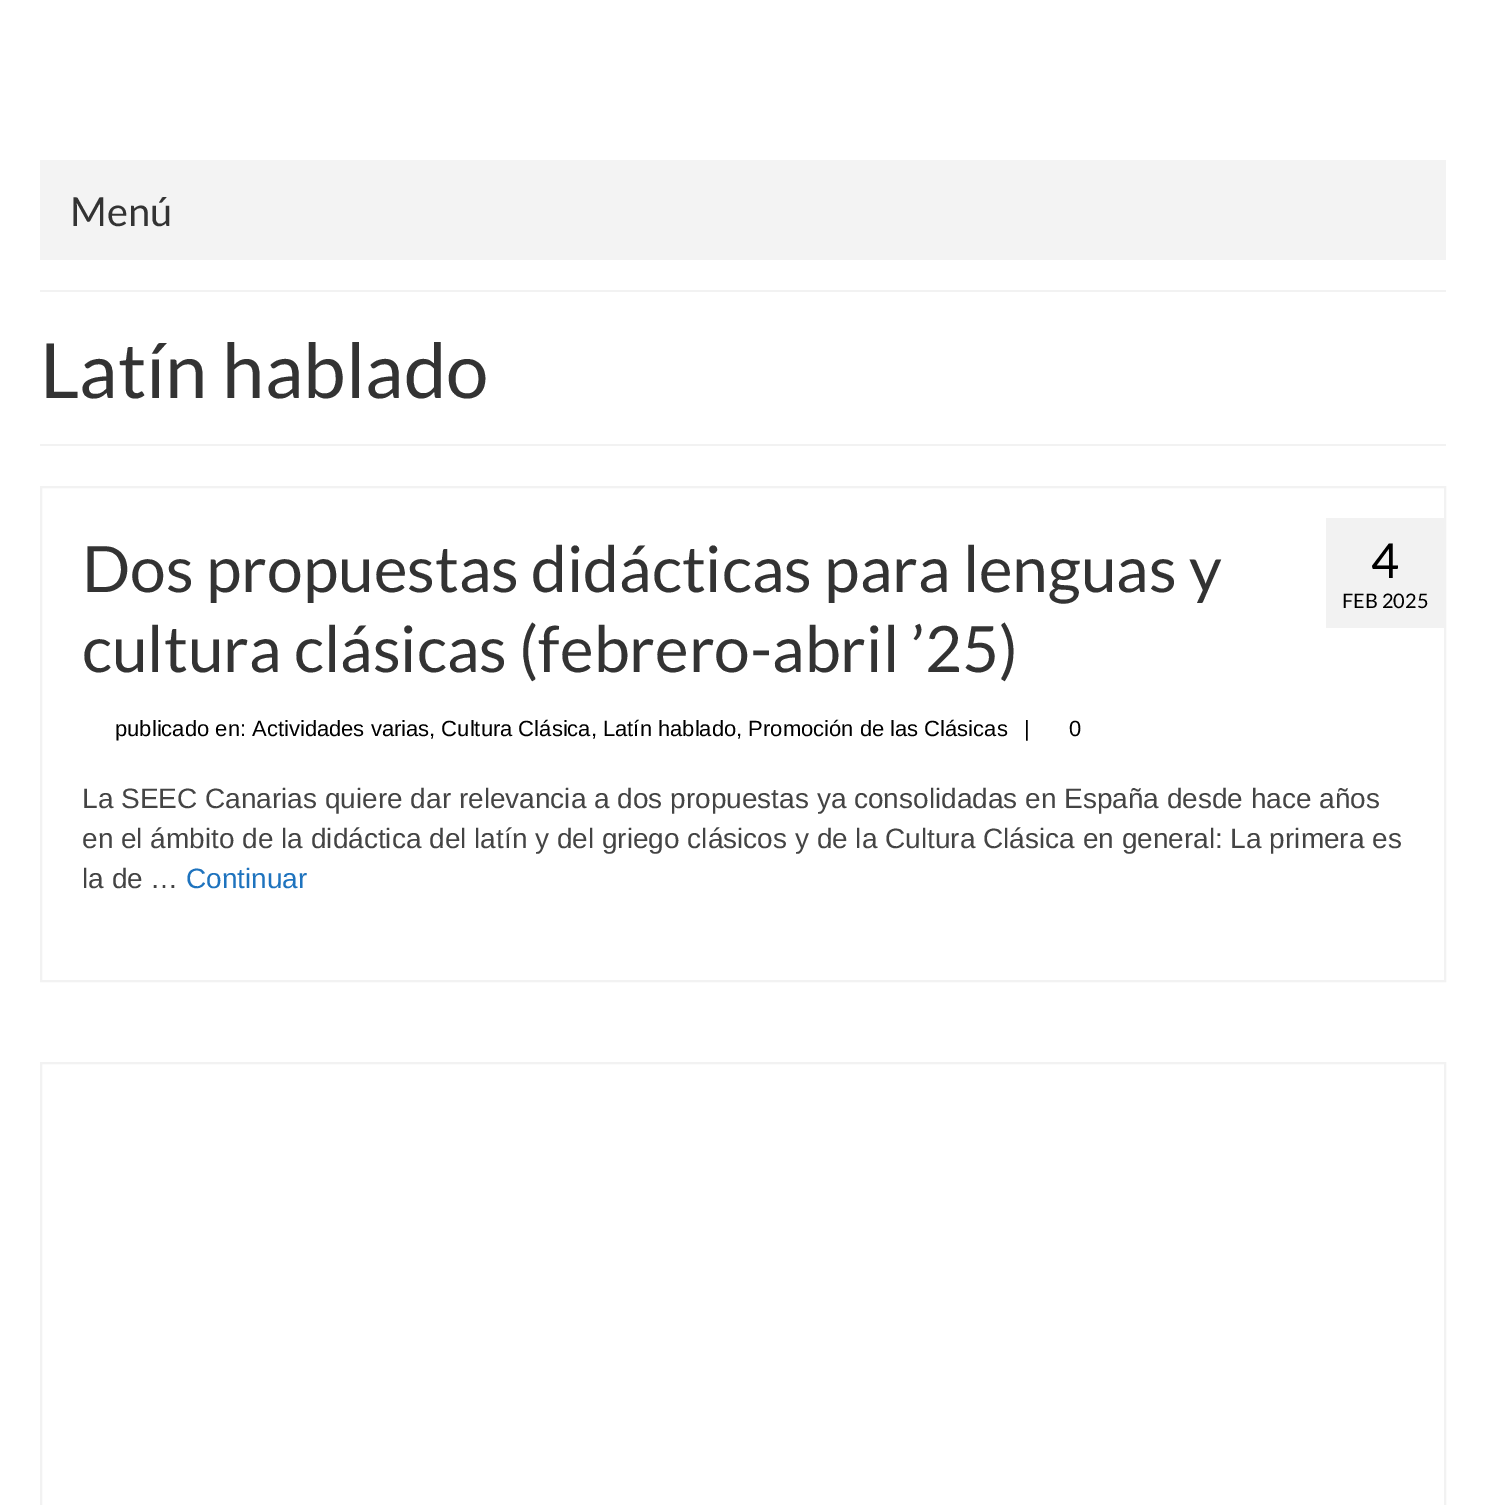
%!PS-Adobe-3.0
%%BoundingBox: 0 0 1485 1505
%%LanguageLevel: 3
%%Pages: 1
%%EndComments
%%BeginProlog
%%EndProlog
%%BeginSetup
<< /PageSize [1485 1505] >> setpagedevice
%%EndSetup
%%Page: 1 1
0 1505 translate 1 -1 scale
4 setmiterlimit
1 setgray
0 0 1485 1505 rectfill
0.953 setgray
40 160 1406 100 rectfill
0.949 setgray
40 290 1406 2 rectfill
40 444 1406 2 rectfill
2 setlinewidth
41 487 1404 494 rectstroke
1326 518 118 110 rectfill
41 1063 1404 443 rectstroke
/Lato-Regular [40 0 0 -40 0 0] selectfont
0.2 setgray
70 226 moveto (Menú) show
/Lato-Regular [76 0 0 -76 0 0] selectfont
40 398 moveto (Latín hablado) show
/Lato-Regular [64 0 0 -64 0 0] selectfont
82 592 moveto (Dos propuestas didácticas para lenguas y) show
82 672 moveto (cultura clásicas \(febrero-abril ’25\)) show
/LiberationSans-Regular [22 0 0 -22 0 0] selectfont
0 setgray
115 736 moveto (publicado en: Actividades varias, Cultura Clásica, Latín hablado, Promoción de las Clásicas) show
1024 736 moveto (|) show
1069 736 moveto (0) show
/Lato-Regular [48 0 0 -48 0 0] selectfont
1371 578 moveto (4) show
/Lato-Regular [20 0 0 -20 0 0] selectfont
1342 608 moveto (FEB 2025) show
/LiberationSans-Regular [28 0 0 -28 0 0] selectfont
0.267 setgray
82 808 moveto (La SEEC Canarias quiere dar relevancia a dos propuestas ya consolidadas en España desde hace años) show
82 848 moveto (en el ámbito de la didáctica del latín y del griego clásicos y de la Cultura Clásica en general: La primera es) show
82 888 moveto (la de …) show
0.118 0.451 0.745 setrgbcolor
186 888 moveto (Continuar) show
showpage
%%EOF
